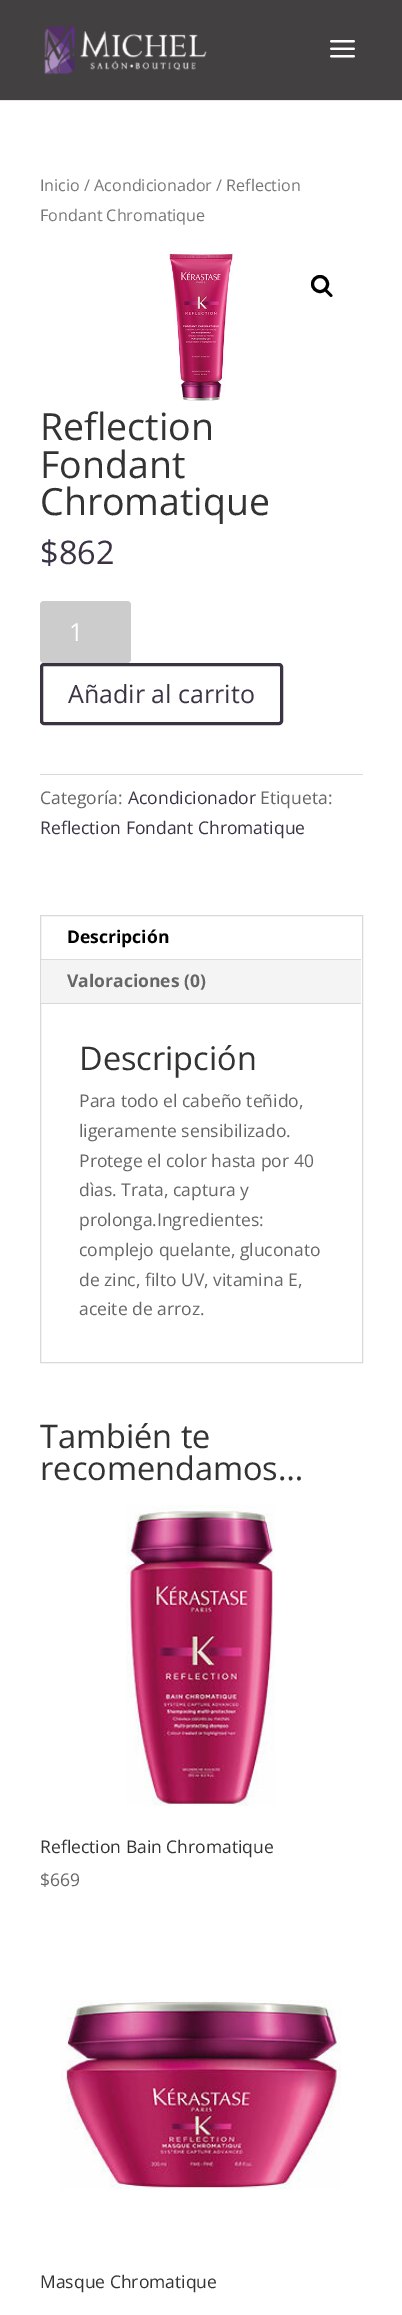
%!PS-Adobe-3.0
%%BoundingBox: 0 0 402 2315
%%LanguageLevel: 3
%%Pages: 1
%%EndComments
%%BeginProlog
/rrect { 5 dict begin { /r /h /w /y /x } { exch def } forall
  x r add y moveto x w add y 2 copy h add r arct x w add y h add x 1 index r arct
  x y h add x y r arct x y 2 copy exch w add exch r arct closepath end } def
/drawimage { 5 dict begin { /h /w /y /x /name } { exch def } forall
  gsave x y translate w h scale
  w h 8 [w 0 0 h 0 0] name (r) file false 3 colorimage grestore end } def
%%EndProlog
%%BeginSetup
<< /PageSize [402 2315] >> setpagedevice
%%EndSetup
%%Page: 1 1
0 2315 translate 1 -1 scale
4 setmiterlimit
1 setgray
0 0 402 2315 rectfill
0.902 setgray
newpath 0 100 moveto 0 101 lineto 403 101 lineto 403 1 lineto 402 1 lineto 402 100 lineto closepath fill
0.263 0.251 0.255 setrgbcolor
0 0 402 100 rectfill
(images/1.raw) 44 26 163 49 drawimage
(images/2.raw) 330 40 25 18 drawimage
(images/3.raw) 169 251 65 150 drawimage
0 setgray
3 setlinewidth
newpath 320 284 7.5 0 360 arc closepath stroke
newpath 325 289.5 moveto 326.5 288 328.5 291.5 329.5 292 curveto 330 293 333.5 295 332 296.5 curveto 330.5 298 328.5 294.5 327.5 294 curveto 327 293 323.5 291 325 289.5 curveto closepath fill
0.8 setgray
40 601 91 62 4 rrect fill
0.231 0.2 0.267 setrgbcolor
41.5 664.5 240 59 2.5 rrect stroke
0.855 setgray
40 774 323 1 rectfill
0.851 setgray
1 setlinewidth
40.5 915.5 322 447 rectstroke
0.957 setgray
41 960 320 43 rectfill
0.878 0.855 0.875 setrgbcolor
41 959 320 1 rectfill
0.851 setgray
41 1003 320 1 rectfill
(images/4.raw) 126 1505 149 301 drawimage
(images/5.raw) 61 2000 280 190 drawimage
/OpenSans-Regular [16.1 0 0 -16.1 0 0] selectfont
0.463 setgray
40 191 moveto (Inicio / Acondicionador / Reflection) show
40 221 moveto (Fondant Chromatique) show
/OpenSans-Regular [37.5 0 0 -37.5 0 0] selectfont
0.2 setgray
40 440 moveto (Reflection) show
40 478 moveto (Fondant) show
40 515 moveto (Chromatique) show
/OpenSans-Regular [32.5 0 0 -32.5 0 0] selectfont
0.231 0.2 0.267 setrgbcolor
40 564 moveto ($862) show
/OpenSans-Regular [25 0 0 -25 0 0] selectfont
1 setgray
69 641 moveto (1) show
0.231 0.2 0.267 setrgbcolor
68 703 moveto (Añadir al carrito) show
/OpenSans-Regular [17.5 0 0 -17.5 0 0] selectfont
0.4 setgray
40 804 moveto (Categoría:) show
0.231 0.2 0.267 setrgbcolor
128 804 moveto (Acondicionador) show
0.4 setgray
260 804 moveto (Etiqueta:) show
0.231 0.2 0.267 setrgbcolor
40 834 moveto (Reflection Fondant Chromatique) show
/OpenSans-Bold [17.5 0 0 -17.5 0 0] selectfont
0 setgray
67 943 moveto (Descripción) show
0.4 setgray
67 987 moveto (Valoraciones \(0\)) show
/OpenSans-Regular [32.5 0 0 -32.5 0 0] selectfont
0.2 setgray
79 1070 moveto (Descripción) show
/OpenSans-Regular [17.5 0 0 -17.5 0 0] selectfont
0.4 setgray
79 1107 moveto (Para todo el cabeño teñido,) show
79 1137 moveto (ligeramente sensibilizado.) show
79 1167 moveto (Protege el color hasta por 40) show
79 1196 moveto (dìas. Trata, captura y) show
79 1226 moveto (prolonga.Ingredientes:) show
79 1256 moveto (complejo quelante, gluconato) show
79 1286 moveto (de zinc, filto UV, vitamina E,) show
79 1315 moveto (aceite de arroz.) show
/OpenSans-Regular [32.5 0 0 -32.5 0 0] selectfont
0.2 setgray
40 1448 moveto (También te) show
40 1480 moveto (recomendamos…) show
/OpenSans-Regular [17.5 0 0 -17.5 0 0] selectfont
40 1853 moveto (Reflection Bain Chromatique) show
0.4 setgray
40 1886 moveto ($669) show
0.2 setgray
40 2288 moveto (Masque Chromatique) show
showpage
%%EOF
